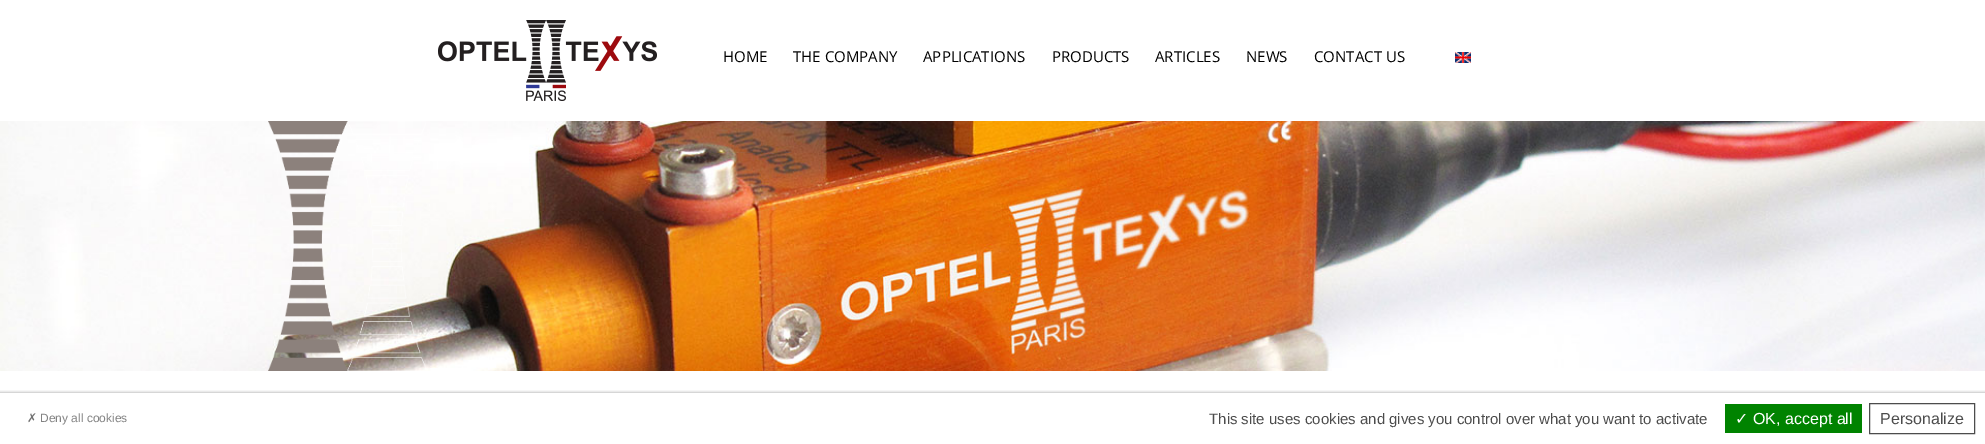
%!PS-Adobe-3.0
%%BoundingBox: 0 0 1985 444
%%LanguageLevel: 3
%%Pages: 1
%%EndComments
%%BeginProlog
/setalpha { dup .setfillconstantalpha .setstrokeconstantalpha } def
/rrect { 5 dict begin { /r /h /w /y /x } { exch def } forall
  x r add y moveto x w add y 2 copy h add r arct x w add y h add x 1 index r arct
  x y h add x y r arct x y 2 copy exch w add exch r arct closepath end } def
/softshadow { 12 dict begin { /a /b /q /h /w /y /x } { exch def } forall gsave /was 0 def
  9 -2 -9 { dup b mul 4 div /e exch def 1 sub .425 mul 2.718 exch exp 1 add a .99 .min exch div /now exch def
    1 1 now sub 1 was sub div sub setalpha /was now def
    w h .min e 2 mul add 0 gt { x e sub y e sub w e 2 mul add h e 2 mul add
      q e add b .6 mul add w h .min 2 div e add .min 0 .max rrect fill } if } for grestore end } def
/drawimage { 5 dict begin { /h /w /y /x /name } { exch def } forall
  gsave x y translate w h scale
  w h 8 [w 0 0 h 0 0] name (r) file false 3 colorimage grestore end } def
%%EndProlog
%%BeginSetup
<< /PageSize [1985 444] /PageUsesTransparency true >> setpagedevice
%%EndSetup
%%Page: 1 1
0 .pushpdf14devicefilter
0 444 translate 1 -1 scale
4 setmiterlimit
1 setgray
0 0 1985 444 rectfill
(images/1.raw) 438 20 219 81 drawimage
(images/2.raw) 1455 52 16 11 drawimage
(images/3.raw) 0 121 1985 250 drawimage
(images/4.raw) 268 121 158 250 drawimage
gsave
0 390 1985 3 rectclip
0.298 setgray
0 394 1985 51 0 2 1 softshadow
grestore
0 0.514 0 setrgbcolor
1725 404 137 29 rectfill
0.298 setgray
1869.5 403.5 105 30 rectstroke
/OpenSans-Regular [15 0 0 -15 0 0] selectfont
0 setgray
723 62 moveto (HOME) show
793 62 moveto (THE COMPANY) show
923 62 moveto (APPLICATIONS) show
1052 62 moveto (PRODUCTS) show
1155 62 moveto (ARTICLES) show
1246 62 moveto (NEWS) show
1314 62 moveto (CONTACT US) show
/DejaVuSans-Regular [12 0 0 -12 0 0] selectfont
0.439 setgray
27 422 moveto (✗) show
/LiberationSans-Regular [12 0 0 -12 0 0] selectfont
0.51 setgray
40 422 moveto (Deny all cookies) show
/LiberationSans-Regular [15 0 0 -15 0 0] selectfont
0.298 setgray
1209 424 moveto (This site uses cookies and gives you control over what you want to activate) show
/DejaVuSans-Regular [16 0 0 -16 0 0] selectfont
1 setgray
1735 424 moveto (✓) show
/LiberationSans-Regular [16 0 0 -16 0 0] selectfont
1753 424 moveto (OK, accept all) show
0.298 setgray
1880 424 moveto (Personalize) show
.poppdf14devicefilter showpage
%%EOF
